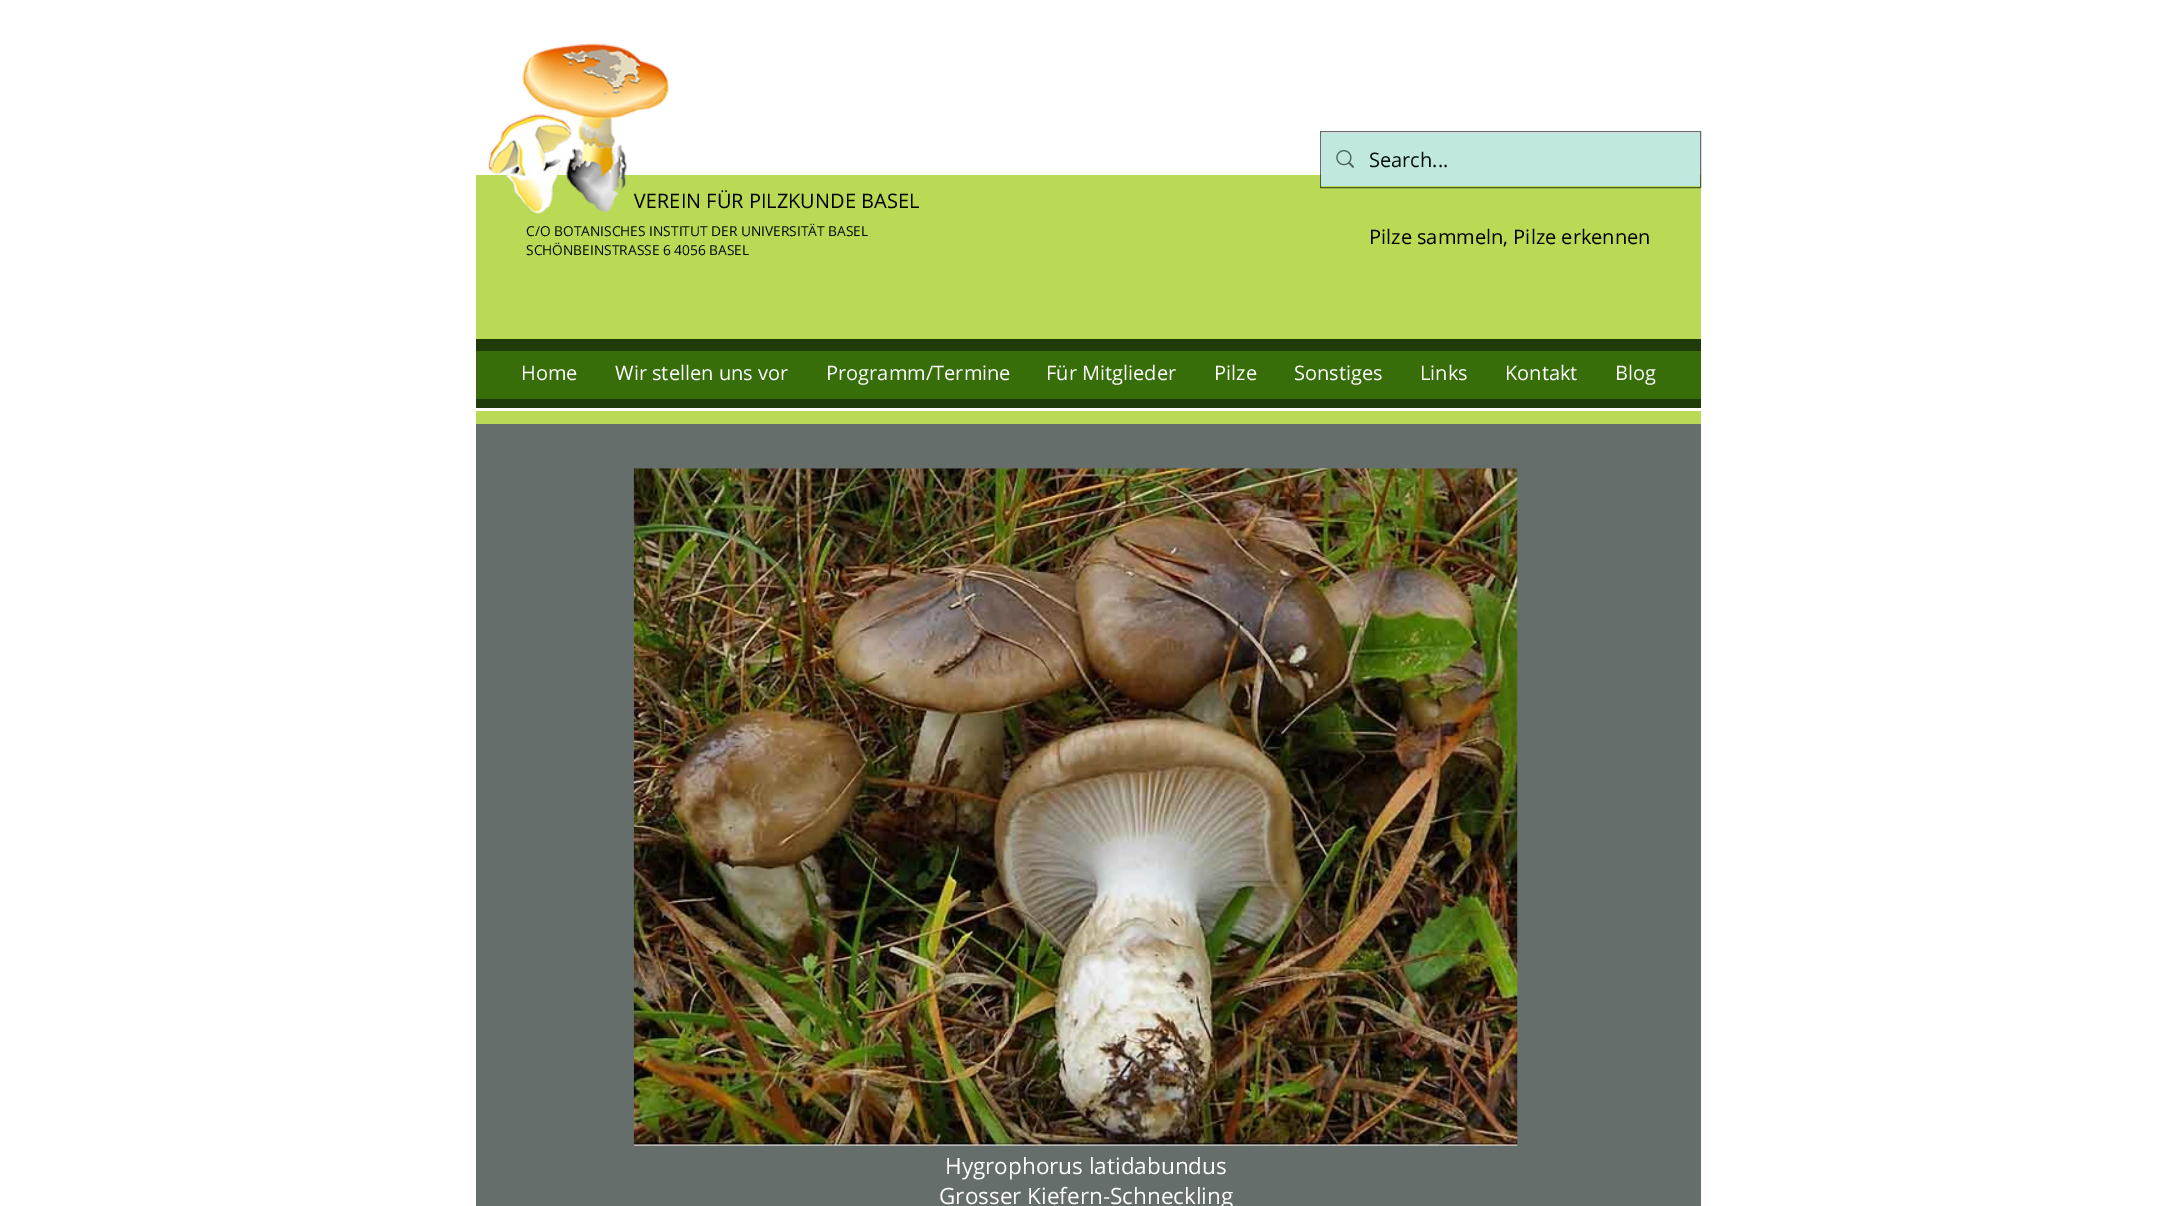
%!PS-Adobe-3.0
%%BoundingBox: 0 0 2177 1206
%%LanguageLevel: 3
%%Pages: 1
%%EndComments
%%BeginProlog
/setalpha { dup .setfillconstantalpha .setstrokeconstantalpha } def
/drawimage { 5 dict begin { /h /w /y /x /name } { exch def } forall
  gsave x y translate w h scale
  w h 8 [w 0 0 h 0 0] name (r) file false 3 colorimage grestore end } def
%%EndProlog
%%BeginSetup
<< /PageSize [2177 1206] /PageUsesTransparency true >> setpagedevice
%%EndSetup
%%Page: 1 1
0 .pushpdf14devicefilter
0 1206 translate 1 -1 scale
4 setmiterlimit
1 setgray
0 0 2177 1206 rectfill
0.729 0.855 0.333 setrgbcolor
476 175 1225 164 rectfill
0.6 setalpha
0 0.051 0.035 setrgbcolor
1320.5 131.5 380 56 rectstroke
1 setalpha
0.753 0.91 0.871 setrgbcolor
1321 133 379 53 rectfill
(images/2.raw) 1336 150 18 18 drawimage
0.122 0.231 0.031 setrgbcolor
476 339 1225 12 rectfill
0.216 0.431 0.035 setrgbcolor
476 351 1225 48 rectfill
0.122 0.231 0.031 setrgbcolor
476 399 1225 9 rectfill
0.729 0.855 0.333 setrgbcolor
476 411 1225 13 rectfill
0.4 0.431 0.424 setrgbcolor
476 424 1225 782 rectfill
(images/3.raw) 633 468 885 678 drawimage
/OpenSans-Regular [20 0 0 -20 0 0] selectfont
0 0.051 0.035 setrgbcolor
1369 167 moveto (Search...) show
0 setgray
634 208 moveto (VEREIN FÜR PILZKUNDE BASEL) show
(images/1.raw) 488 43 181 172 drawimage
/OpenSans-Regular [13.75 0 0 -13.75 0 0] selectfont
0 0.051 0.035 setrgbcolor
526 236 moveto (C/O BOTANISCHES INSTITUT DER UNIVERSITÄT BASEL) show
526 255 moveto (SCHÖNBEINSTRASSE 6 4056 BASEL) show
/OpenSans-Regular [20 0 0 -20 0 0] selectfont
0 setgray
1369 244 moveto (Pilze sammeln, Pilze erkennen) show
1 setgray
521 380 moveto (Home) show
615 380 moveto (Wir stellen uns vor) show
826 380 moveto (Programm/Termine) show
1046 380 moveto (Für Mitglieder) show
1214 380 moveto (Pilze) show
1294 380 moveto (Sonstiges) show
1420 380 moveto (Links) show
1505 380 moveto (Kontakt) show
1615 380 moveto (Blog) show
/OpenSans-Regular [22.5 0 0 -22.5 0 0] selectfont
945 1174 moveto (Hygrophorus latidabundus) show
939 1204 moveto (Grosser Kiefern-Schneckling) show
.poppdf14devicefilter showpage
%%EOF
